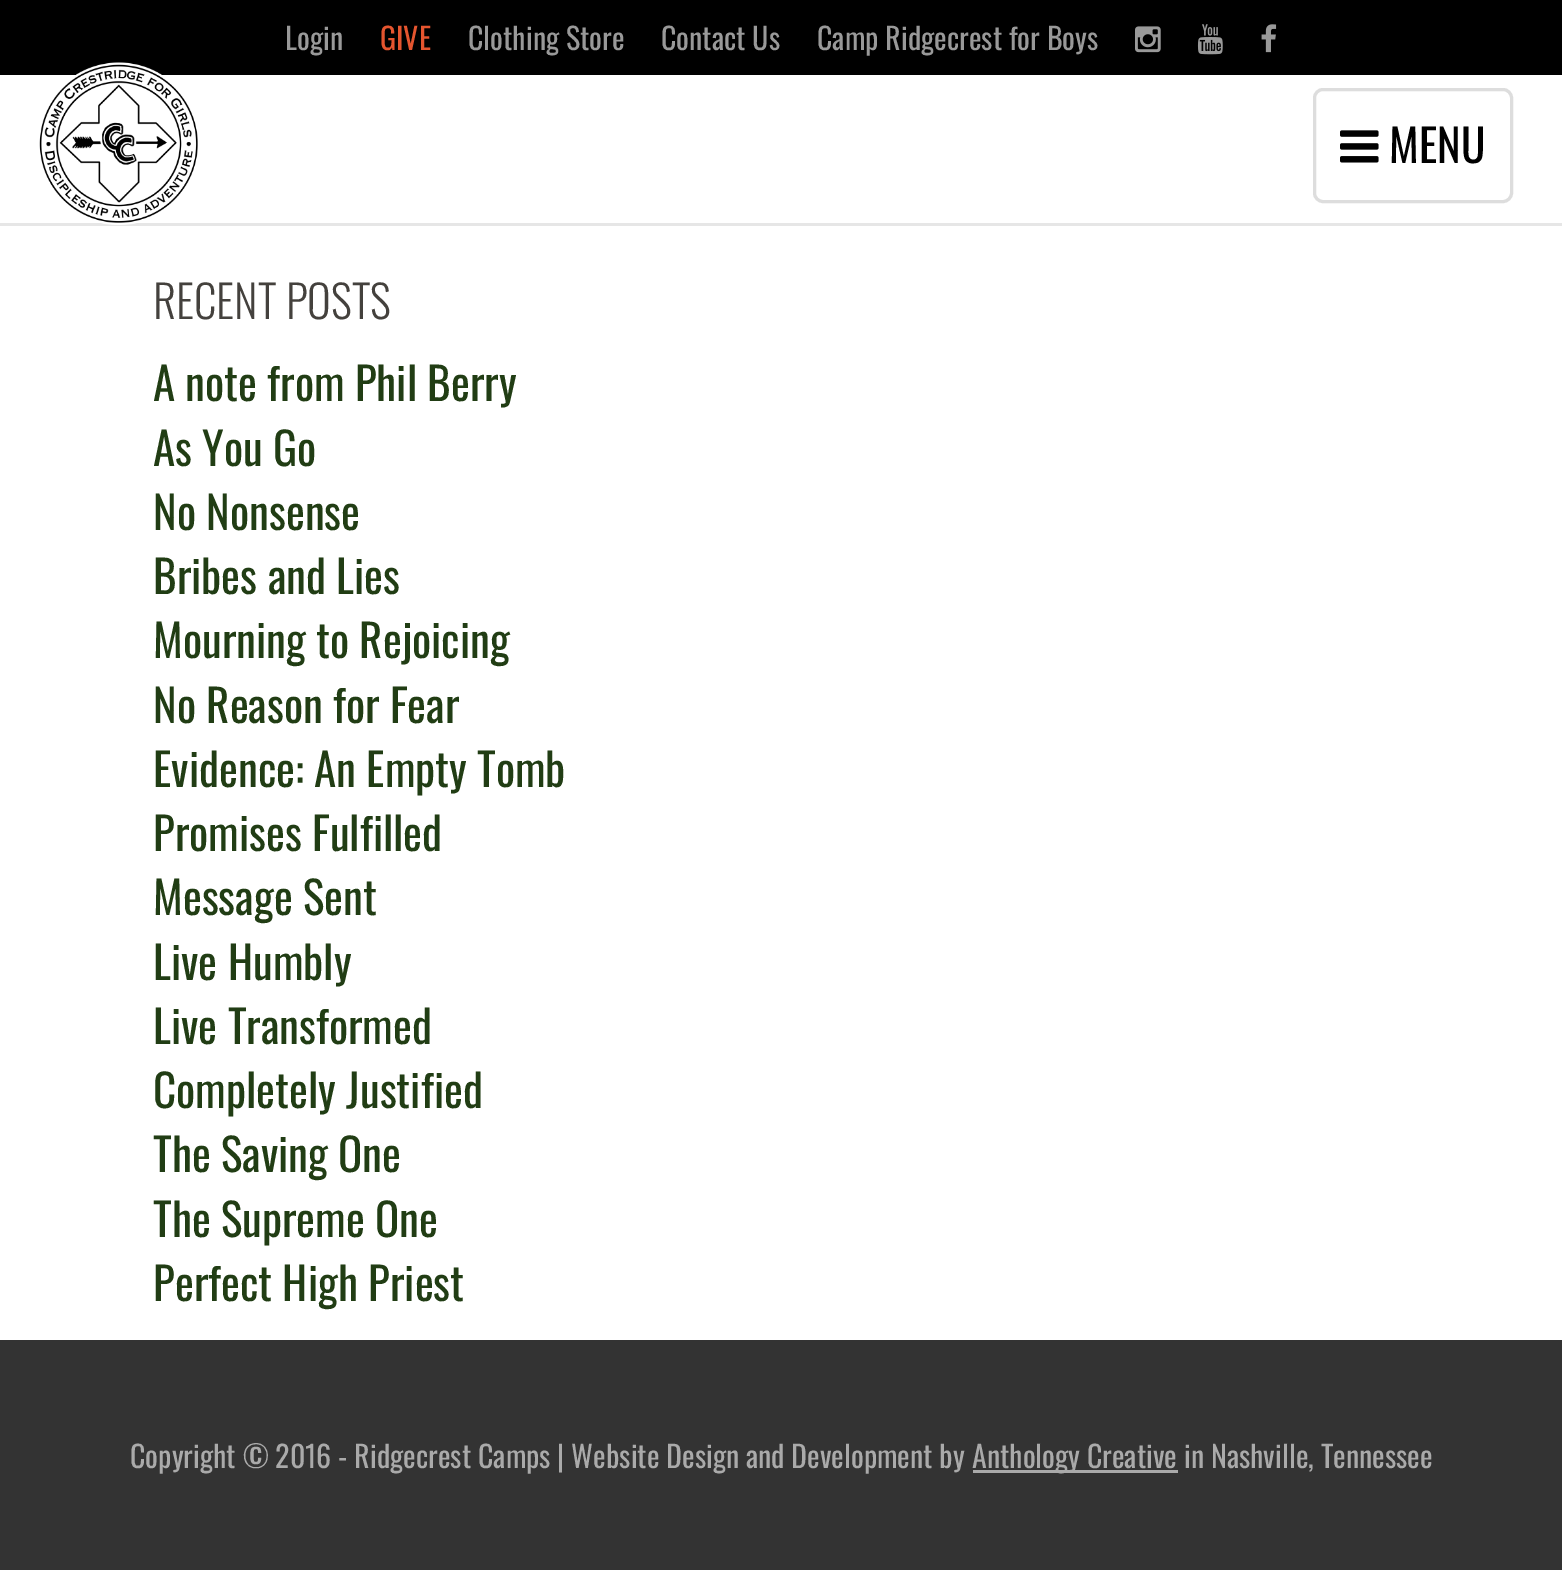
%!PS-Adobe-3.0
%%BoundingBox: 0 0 1562 1570
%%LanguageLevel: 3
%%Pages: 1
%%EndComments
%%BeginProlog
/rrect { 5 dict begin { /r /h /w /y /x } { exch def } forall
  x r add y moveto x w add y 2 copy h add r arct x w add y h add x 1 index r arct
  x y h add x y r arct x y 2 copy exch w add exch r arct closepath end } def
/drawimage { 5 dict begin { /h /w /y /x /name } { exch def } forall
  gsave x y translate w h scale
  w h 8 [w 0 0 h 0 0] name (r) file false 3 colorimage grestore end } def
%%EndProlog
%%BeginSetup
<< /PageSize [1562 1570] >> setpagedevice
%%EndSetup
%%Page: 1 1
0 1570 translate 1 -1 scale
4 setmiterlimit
1 setgray
0 0 1562 1570 rectfill
0 setgray
0 0 1562 75 rectfill
(images/1.raw) 1135 26 26 27 drawimage
(images/2.raw) 1197 24 26 31 drawimage
(images/3.raw) 1261 24 16 29 drawimage
0.902 setgray
0 223 1562 3 rectfill
(images/4.raw) 39 62 159 163 drawimage
0.867 setgray
3 setlinewidth
1314.5 89.5 197 112 8.5 rrect stroke
(images/5.raw) 1340 130 39 33 drawimage
0.2 setgray
0 1340 1562 230 rectfill
0.667 setgray
973 1470 205 3 rectfill
/Oswald-Regular [30 0 0 -30 0 0] selectfont
0.6 setgray
285 50 moveto (Login) show
0.898 0.333 0.184 setrgbcolor
380 50 moveto (GIVE) show
0.6 setgray
468 50 moveto (Clothing Store) show
661 50 moveto (Contact Us) show
817 50 moveto (Camp Ridgecrest for Boys) show
/Oswald-Regular [45 0 0 -45 0 0] selectfont
0 setgray
1389 163 moveto (MENU) show
/Oswald-Light [45 0 0 -45 0 0] selectfont
0.267 0.255 0.239 setrgbcolor
153 319 moveto (RECENT POSTS) show
/Oswald-Regular [45 0 0 -45 0 0] selectfont
0.129 0.239 0.078 setrgbcolor
153 401 moveto (A note from Phil Berry) show
153 466 moveto (As You Go) show
153 530 moveto (No Nonsense) show
153 594 moveto (Bribes and Lies) show
153 658 moveto (Mourning to Rejoicing) show
153 723 moveto (No Reason for Fear) show
153 787 moveto (Evidence: An Empty Tomb) show
153 851 moveto (Promises Fulfilled) show
153 915 moveto (Message Sent) show
153 980 moveto (Live Humbly) show
153 1044 moveto (Live Transformed) show
153 1108 moveto (Completely Justified) show
153 1172 moveto (The Saving One) show
153 1237 moveto (The Supreme One) show
153 1301 moveto (Perfect High Priest) show
/Oswald-Regular [30 0 0 -30 0 0] selectfont
0.667 setgray
130 1468 moveto (Copyright © 2016 - Ridgecrest Camps | Website Design and Development by) show
972 1468 moveto (Anthology Creative in Nashville, Tennessee) show
showpage
%%EOF
